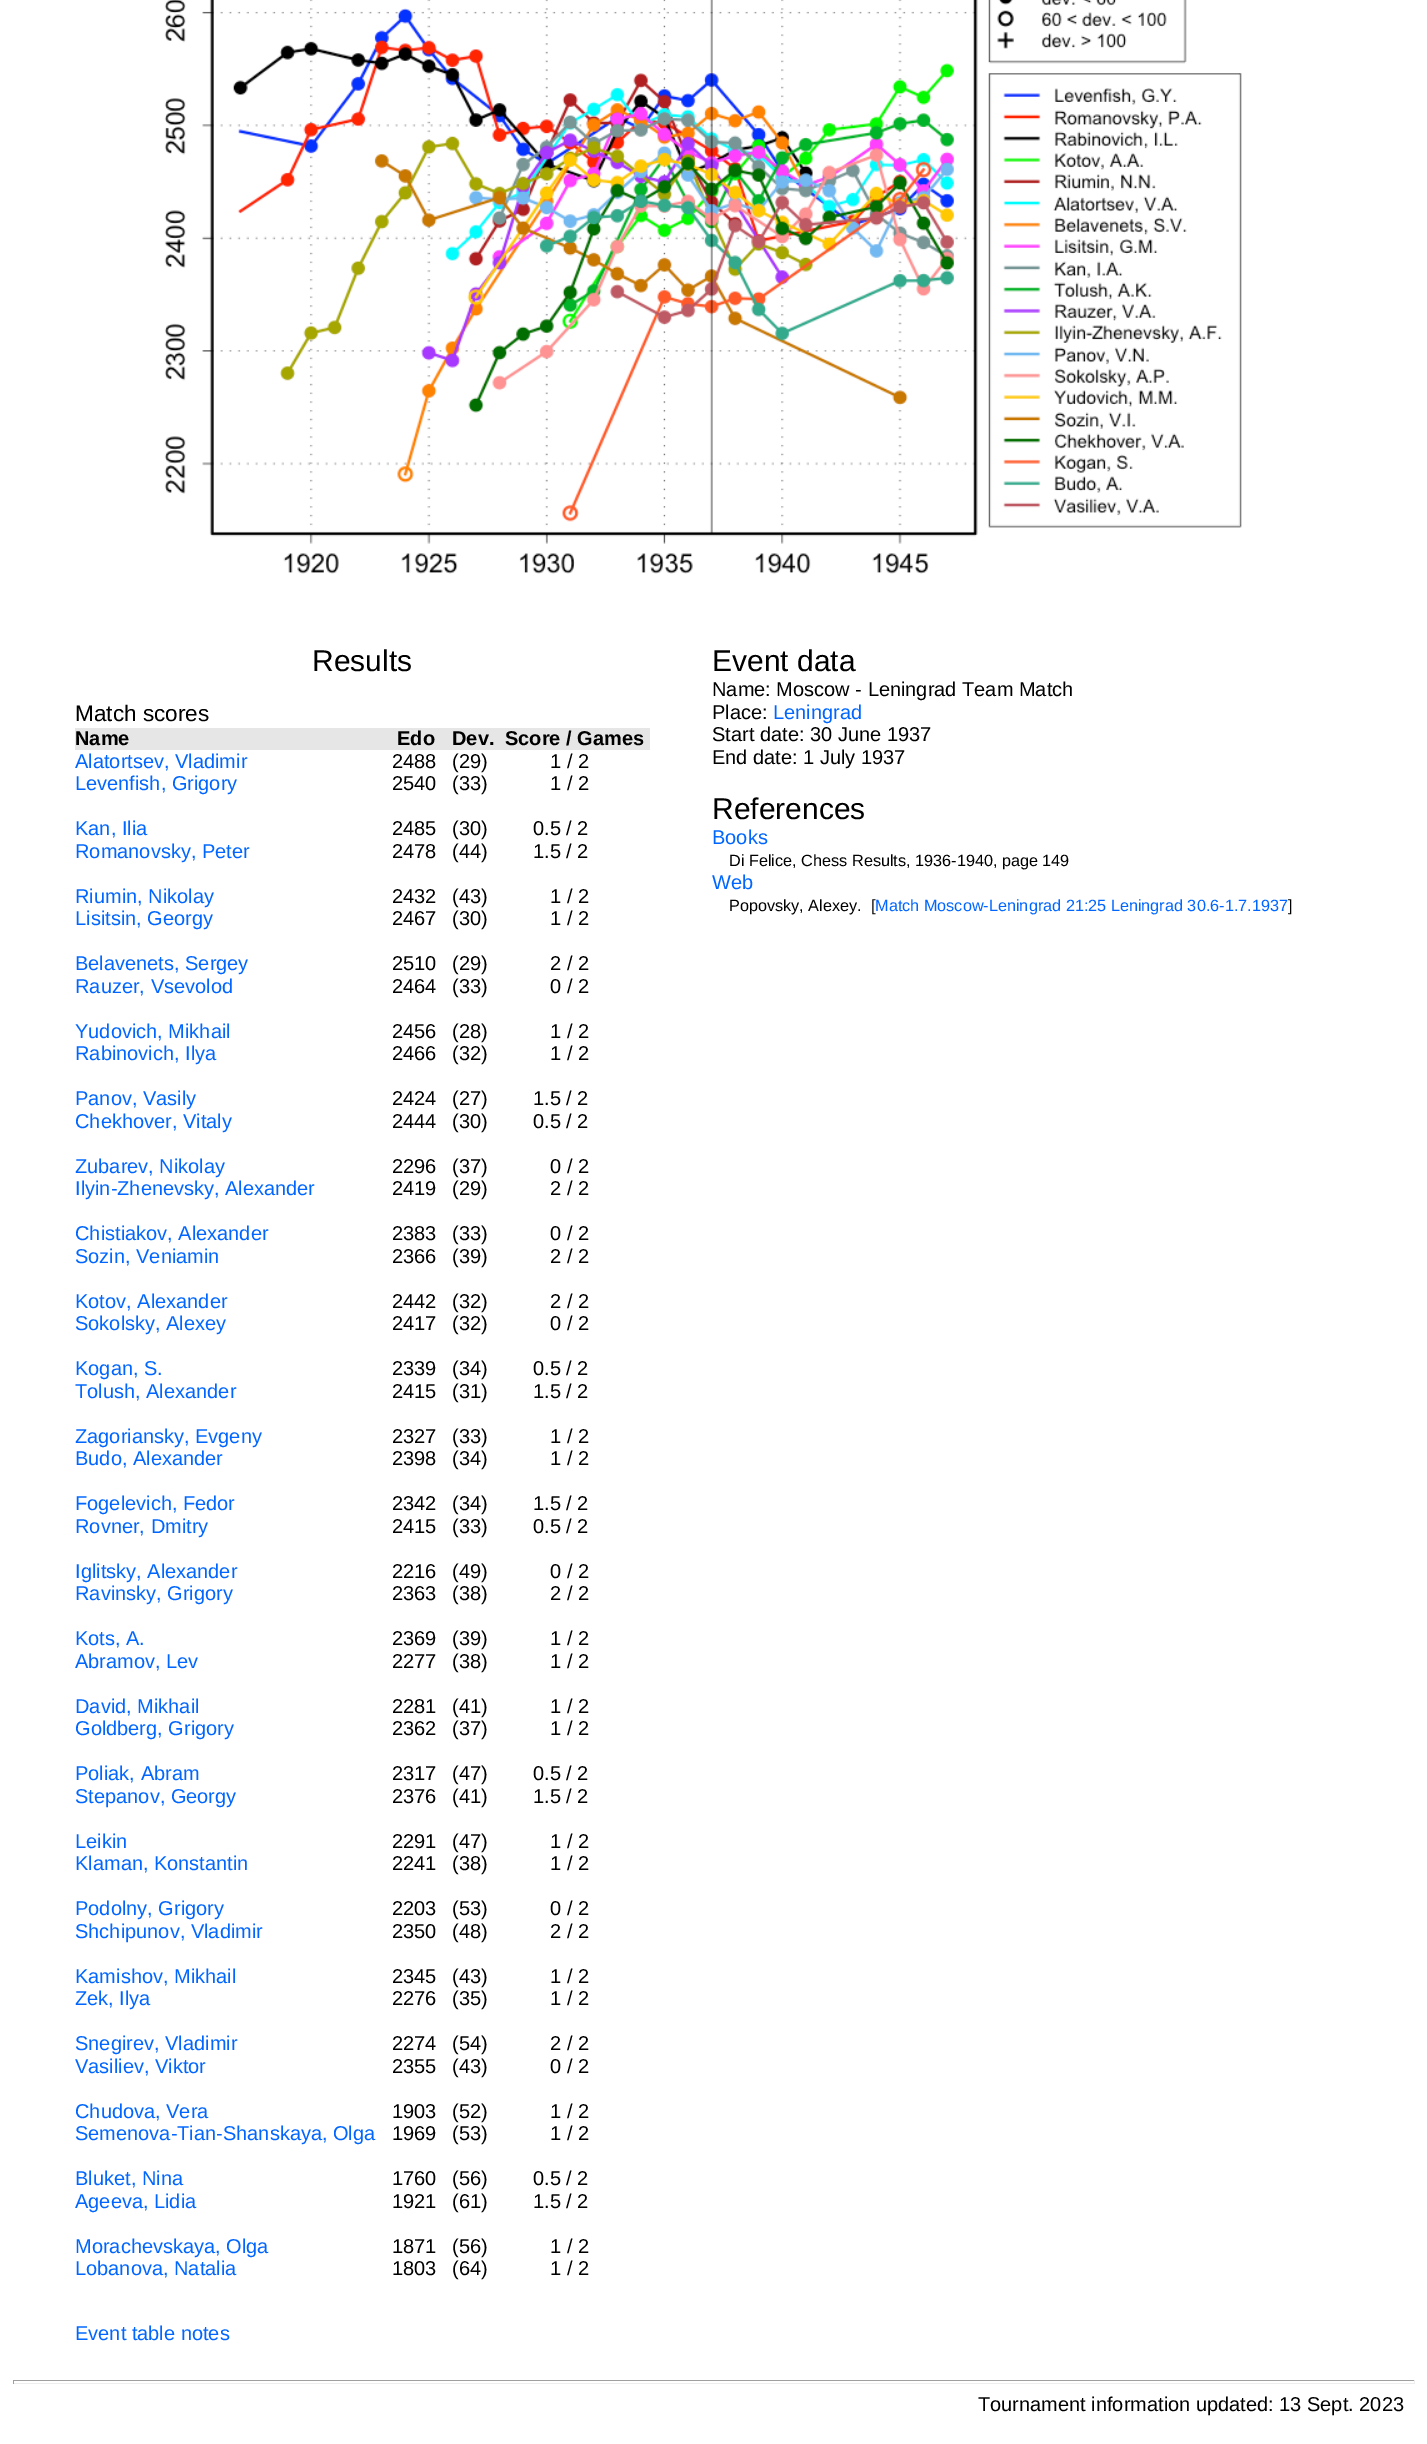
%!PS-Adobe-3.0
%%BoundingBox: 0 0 1427 2444
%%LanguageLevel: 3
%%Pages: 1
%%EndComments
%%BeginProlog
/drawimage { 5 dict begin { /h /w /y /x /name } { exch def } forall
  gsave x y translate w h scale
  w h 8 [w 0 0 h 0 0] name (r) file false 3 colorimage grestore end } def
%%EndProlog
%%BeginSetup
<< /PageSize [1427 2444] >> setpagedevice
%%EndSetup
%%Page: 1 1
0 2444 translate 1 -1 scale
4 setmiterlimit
1 setgray
0 0 1427 2444 rectfill
(images/1.raw) 164 0 1078 574 drawimage
0.902 setgray
75 728 575 22 rectfill
0.624 setgray
13 2380 1402 1 rectfill
0.933 setgray
1414 2380 1 4 rectfill
13 2383 1402 1 rectfill
0.624 setgray
13 2380 1 4 rectfill
/LiberationSans-Regular [30 0 0 -30 0 0] selectfont
0 setgray
312 671 moveto (Results) show
/LiberationSans-Regular [22.5 0 0 -22.5 0 0] selectfont
75 721 moveto (Match scores) show
/LiberationSans-Bold [20 0 0 -20 0 0] selectfont
75 745 moveto (Name) show
397 745 moveto (Edo) show
452 745 moveto (Dev.) show
505 745 moveto (Score / Games) show
/LiberationSans-Regular [20 0 0 -20 0 0] selectfont
0 0.4 1 setrgbcolor
75 768 moveto (Alatortsev, Vladimir) show
0 setgray
392 768 moveto (2488) show
452 768 moveto (\(29\)) show
550 768 moveto (1 / 2) show
0 0.4 1 setrgbcolor
75 790 moveto (Levenfish, Grigory) show
0 setgray
392 790 moveto (2540) show
452 790 moveto (\(33\)) show
550 790 moveto (1 / 2) show
0 0.4 1 setrgbcolor
75 835 moveto (Kan, Ilia) show
0 setgray
392 835 moveto (2485) show
452 835 moveto (\(30\)) show
533 835 moveto (0.5 / 2) show
0 0.4 1 setrgbcolor
75 858 moveto (Romanovsky, Peter) show
0 setgray
392 858 moveto (2478) show
452 858 moveto (\(44\)) show
533 858 moveto (1.5 / 2) show
0 0.4 1 setrgbcolor
75 903 moveto (Riumin, Nikolay) show
0 setgray
392 903 moveto (2432) show
452 903 moveto (\(43\)) show
550 903 moveto (1 / 2) show
0 0.4 1 setrgbcolor
75 925 moveto (Lisitsin, Georgy) show
0 setgray
392 925 moveto (2467) show
452 925 moveto (\(30\)) show
550 925 moveto (1 / 2) show
0 0.4 1 setrgbcolor
75 970 moveto (Belavenets, Sergey) show
0 setgray
392 970 moveto (2510) show
452 970 moveto (\(29\)) show
550 970 moveto (2 / 2) show
0 0.4 1 setrgbcolor
75 993 moveto (Rauzer, Vsevolod) show
0 setgray
392 993 moveto (2464) show
452 993 moveto (\(33\)) show
550 993 moveto (0 / 2) show
0 0.4 1 setrgbcolor
75 1038 moveto (Yudovich, Mikhail) show
0 setgray
392 1038 moveto (2456) show
452 1038 moveto (\(28\)) show
550 1038 moveto (1 / 2) show
0 0.4 1 setrgbcolor
75 1060 moveto (Rabinovich, Ilya) show
0 setgray
392 1060 moveto (2466) show
452 1060 moveto (\(32\)) show
550 1060 moveto (1 / 2) show
0 0.4 1 setrgbcolor
75 1105 moveto (Panov, Vasily) show
0 setgray
392 1105 moveto (2424) show
452 1105 moveto (\(27\)) show
533 1105 moveto (1.5 / 2) show
0 0.4 1 setrgbcolor
75 1128 moveto (Chekhover, Vitaly) show
0 setgray
392 1128 moveto (2444) show
452 1128 moveto (\(30\)) show
533 1128 moveto (0.5 / 2) show
0 0.4 1 setrgbcolor
75 1173 moveto (Zubarev, Nikolay) show
0 setgray
392 1173 moveto (2296) show
452 1173 moveto (\(37\)) show
550 1173 moveto (0 / 2) show
0 0.4 1 setrgbcolor
75 1195 moveto (Ilyin-Zhenevsky, Alexander) show
0 setgray
392 1195 moveto (2419) show
452 1195 moveto (\(29\)) show
550 1195 moveto (2 / 2) show
0 0.4 1 setrgbcolor
75 1240 moveto (Chistiakov, Alexander) show
0 setgray
392 1240 moveto (2383) show
452 1240 moveto (\(33\)) show
550 1240 moveto (0 / 2) show
0 0.4 1 setrgbcolor
75 1263 moveto (Sozin, Veniamin) show
0 setgray
392 1263 moveto (2366) show
452 1263 moveto (\(39\)) show
550 1263 moveto (2 / 2) show
0 0.4 1 setrgbcolor
75 1308 moveto (Kotov, Alexander) show
0 setgray
392 1308 moveto (2442) show
452 1308 moveto (\(32\)) show
550 1308 moveto (2 / 2) show
0 0.4 1 setrgbcolor
75 1330 moveto (Sokolsky, Alexey) show
0 setgray
392 1330 moveto (2417) show
452 1330 moveto (\(32\)) show
550 1330 moveto (0 / 2) show
0 0.4 1 setrgbcolor
75 1375 moveto (Kogan, S.) show
0 setgray
392 1375 moveto (2339) show
452 1375 moveto (\(34\)) show
533 1375 moveto (0.5 / 2) show
0 0.4 1 setrgbcolor
75 1398 moveto (Tolush, Alexander) show
0 setgray
392 1398 moveto (2415) show
452 1398 moveto (\(31\)) show
533 1398 moveto (1.5 / 2) show
0 0.4 1 setrgbcolor
75 1443 moveto (Zagoriansky, Evgeny) show
0 setgray
392 1443 moveto (2327) show
452 1443 moveto (\(33\)) show
550 1443 moveto (1 / 2) show
0 0.4 1 setrgbcolor
75 1465 moveto (Budo, Alexander) show
0 setgray
392 1465 moveto (2398) show
452 1465 moveto (\(34\)) show
550 1465 moveto (1 / 2) show
0 0.4 1 setrgbcolor
75 1510 moveto (Fogelevich, Fedor) show
0 setgray
392 1510 moveto (2342) show
452 1510 moveto (\(34\)) show
533 1510 moveto (1.5 / 2) show
0 0.4 1 setrgbcolor
75 1533 moveto (Rovner, Dmitry) show
0 setgray
392 1533 moveto (2415) show
452 1533 moveto (\(33\)) show
533 1533 moveto (0.5 / 2) show
0 0.4 1 setrgbcolor
75 1578 moveto (Iglitsky, Alexander) show
0 setgray
392 1578 moveto (2216) show
452 1578 moveto (\(49\)) show
550 1578 moveto (0 / 2) show
0 0.4 1 setrgbcolor
75 1600 moveto (Ravinsky, Grigory) show
0 setgray
392 1600 moveto (2363) show
452 1600 moveto (\(38\)) show
550 1600 moveto (2 / 2) show
0 0.4 1 setrgbcolor
75 1645 moveto (Kots, A.) show
0 setgray
392 1645 moveto (2369) show
452 1645 moveto (\(39\)) show
550 1645 moveto (1 / 2) show
0 0.4 1 setrgbcolor
75 1668 moveto (Abramov, Lev) show
0 setgray
392 1668 moveto (2277) show
452 1668 moveto (\(38\)) show
550 1668 moveto (1 / 2) show
0 0.4 1 setrgbcolor
75 1713 moveto (David, Mikhail) show
0 setgray
392 1713 moveto (2281) show
452 1713 moveto (\(41\)) show
550 1713 moveto (1 / 2) show
0 0.4 1 setrgbcolor
75 1735 moveto (Goldberg, Grigory) show
0 setgray
392 1735 moveto (2362) show
452 1735 moveto (\(37\)) show
550 1735 moveto (1 / 2) show
0 0.4 1 setrgbcolor
75 1780 moveto (Poliak, Abram) show
0 setgray
392 1780 moveto (2317) show
452 1780 moveto (\(47\)) show
533 1780 moveto (0.5 / 2) show
0 0.4 1 setrgbcolor
75 1803 moveto (Stepanov, Georgy) show
0 setgray
392 1803 moveto (2376) show
452 1803 moveto (\(41\)) show
533 1803 moveto (1.5 / 2) show
0 0.4 1 setrgbcolor
75 1848 moveto (Leikin) show
0 setgray
392 1848 moveto (2291) show
452 1848 moveto (\(47\)) show
550 1848 moveto (1 / 2) show
0 0.4 1 setrgbcolor
75 1870 moveto (Klaman, Konstantin) show
0 setgray
392 1870 moveto (2241) show
452 1870 moveto (\(38\)) show
550 1870 moveto (1 / 2) show
0 0.4 1 setrgbcolor
75 1915 moveto (Podolny, Grigory) show
0 setgray
392 1915 moveto (2203) show
452 1915 moveto (\(53\)) show
550 1915 moveto (0 / 2) show
0 0.4 1 setrgbcolor
75 1938 moveto (Shchipunov, Vladimir) show
0 setgray
392 1938 moveto (2350) show
452 1938 moveto (\(48\)) show
550 1938 moveto (2 / 2) show
0 0.4 1 setrgbcolor
75 1983 moveto (Kamishov, Mikhail) show
0 setgray
392 1983 moveto (2345) show
452 1983 moveto (\(43\)) show
550 1983 moveto (1 / 2) show
0 0.4 1 setrgbcolor
75 2005 moveto (Zek, Ilya) show
0 setgray
392 2005 moveto (2276) show
452 2005 moveto (\(35\)) show
550 2005 moveto (1 / 2) show
0 0.4 1 setrgbcolor
75 2050 moveto (Snegirev, Vladimir) show
0 setgray
392 2050 moveto (2274) show
452 2050 moveto (\(54\)) show
550 2050 moveto (2 / 2) show
0 0.4 1 setrgbcolor
75 2073 moveto (Vasiliev, Viktor) show
0 setgray
392 2073 moveto (2355) show
452 2073 moveto (\(43\)) show
550 2073 moveto (0 / 2) show
0 0.4 1 setrgbcolor
75 2118 moveto (Chudova, Vera) show
0 setgray
392 2118 moveto (1903) show
452 2118 moveto (\(52\)) show
550 2118 moveto (1 / 2) show
0 0.4 1 setrgbcolor
75 2140 moveto (Semenova-Tian-Shanskaya, Olga) show
0 setgray
392 2140 moveto (1969) show
452 2140 moveto (\(53\)) show
550 2140 moveto (1 / 2) show
0 0.4 1 setrgbcolor
75 2185 moveto (Bluket, Nina) show
0 setgray
392 2185 moveto (1760) show
452 2185 moveto (\(56\)) show
533 2185 moveto (0.5 / 2) show
0 0.4 1 setrgbcolor
75 2208 moveto (Ageeva, Lidia) show
0 setgray
392 2208 moveto (1921) show
452 2208 moveto (\(61\)) show
533 2208 moveto (1.5 / 2) show
0 0.4 1 setrgbcolor
75 2253 moveto (Morachevskaya, Olga) show
0 setgray
392 2253 moveto (1871) show
452 2253 moveto (\(56\)) show
550 2253 moveto (1 / 2) show
0 0.4 1 setrgbcolor
75 2275 moveto (Lobanova, Natalia) show
0 setgray
392 2275 moveto (1803) show
452 2275 moveto (\(64\)) show
550 2275 moveto (1 / 2) show
0 0.4 1 setrgbcolor
75 2340 moveto (Event table notes) show
/LiberationSans-Regular [30 0 0 -30 0 0] selectfont
0 setgray
712 671 moveto (Event data) show
/LiberationSans-Regular [20 0 0 -20 0 0] selectfont
712 696 moveto (Name: Moscow - Leningrad Team Match) show
712 719 moveto (Place:) show
0 0.4 1 setrgbcolor
773 719 moveto (Leningrad) show
0 setgray
712 741 moveto (Start date: 30 June 1937) show
712 764 moveto (End date: 1 July 1937) show
/LiberationSans-Regular [30 0 0 -30 0 0] selectfont
712 819 moveto (References) show
/LiberationSans-Regular [20 0 0 -20 0 0] selectfont
0 0.4 1 setrgbcolor
712 844 moveto (Books) show
/LiberationSans-Regular [16.25 0 0 -16.25 0 0] selectfont
0 setgray
729 866 moveto (Di Felice, Chess Results, 1936-1940, page 149) show
/LiberationSans-Regular [20 0 0 -20 0 0] selectfont
0 0.4 1 setrgbcolor
712 889 moveto (Web) show
/LiberationSans-Regular [16.25 0 0 -16.25 0 0] selectfont
0 setgray
729 911 moveto (Popovsky, Alexey.  [) show
0 0.4 1 setrgbcolor
875 911 moveto (Match Moscow-Leningrad 21:25 Leningrad 30.6-1.7.1937) show
0 setgray
1288 911 moveto (]) show
/LiberationSans-Regular [20 0 0 -20 0 0] selectfont
978 2411 moveto (Tournament information updated: 13 Sept. 2023) show
showpage
%%EOF
